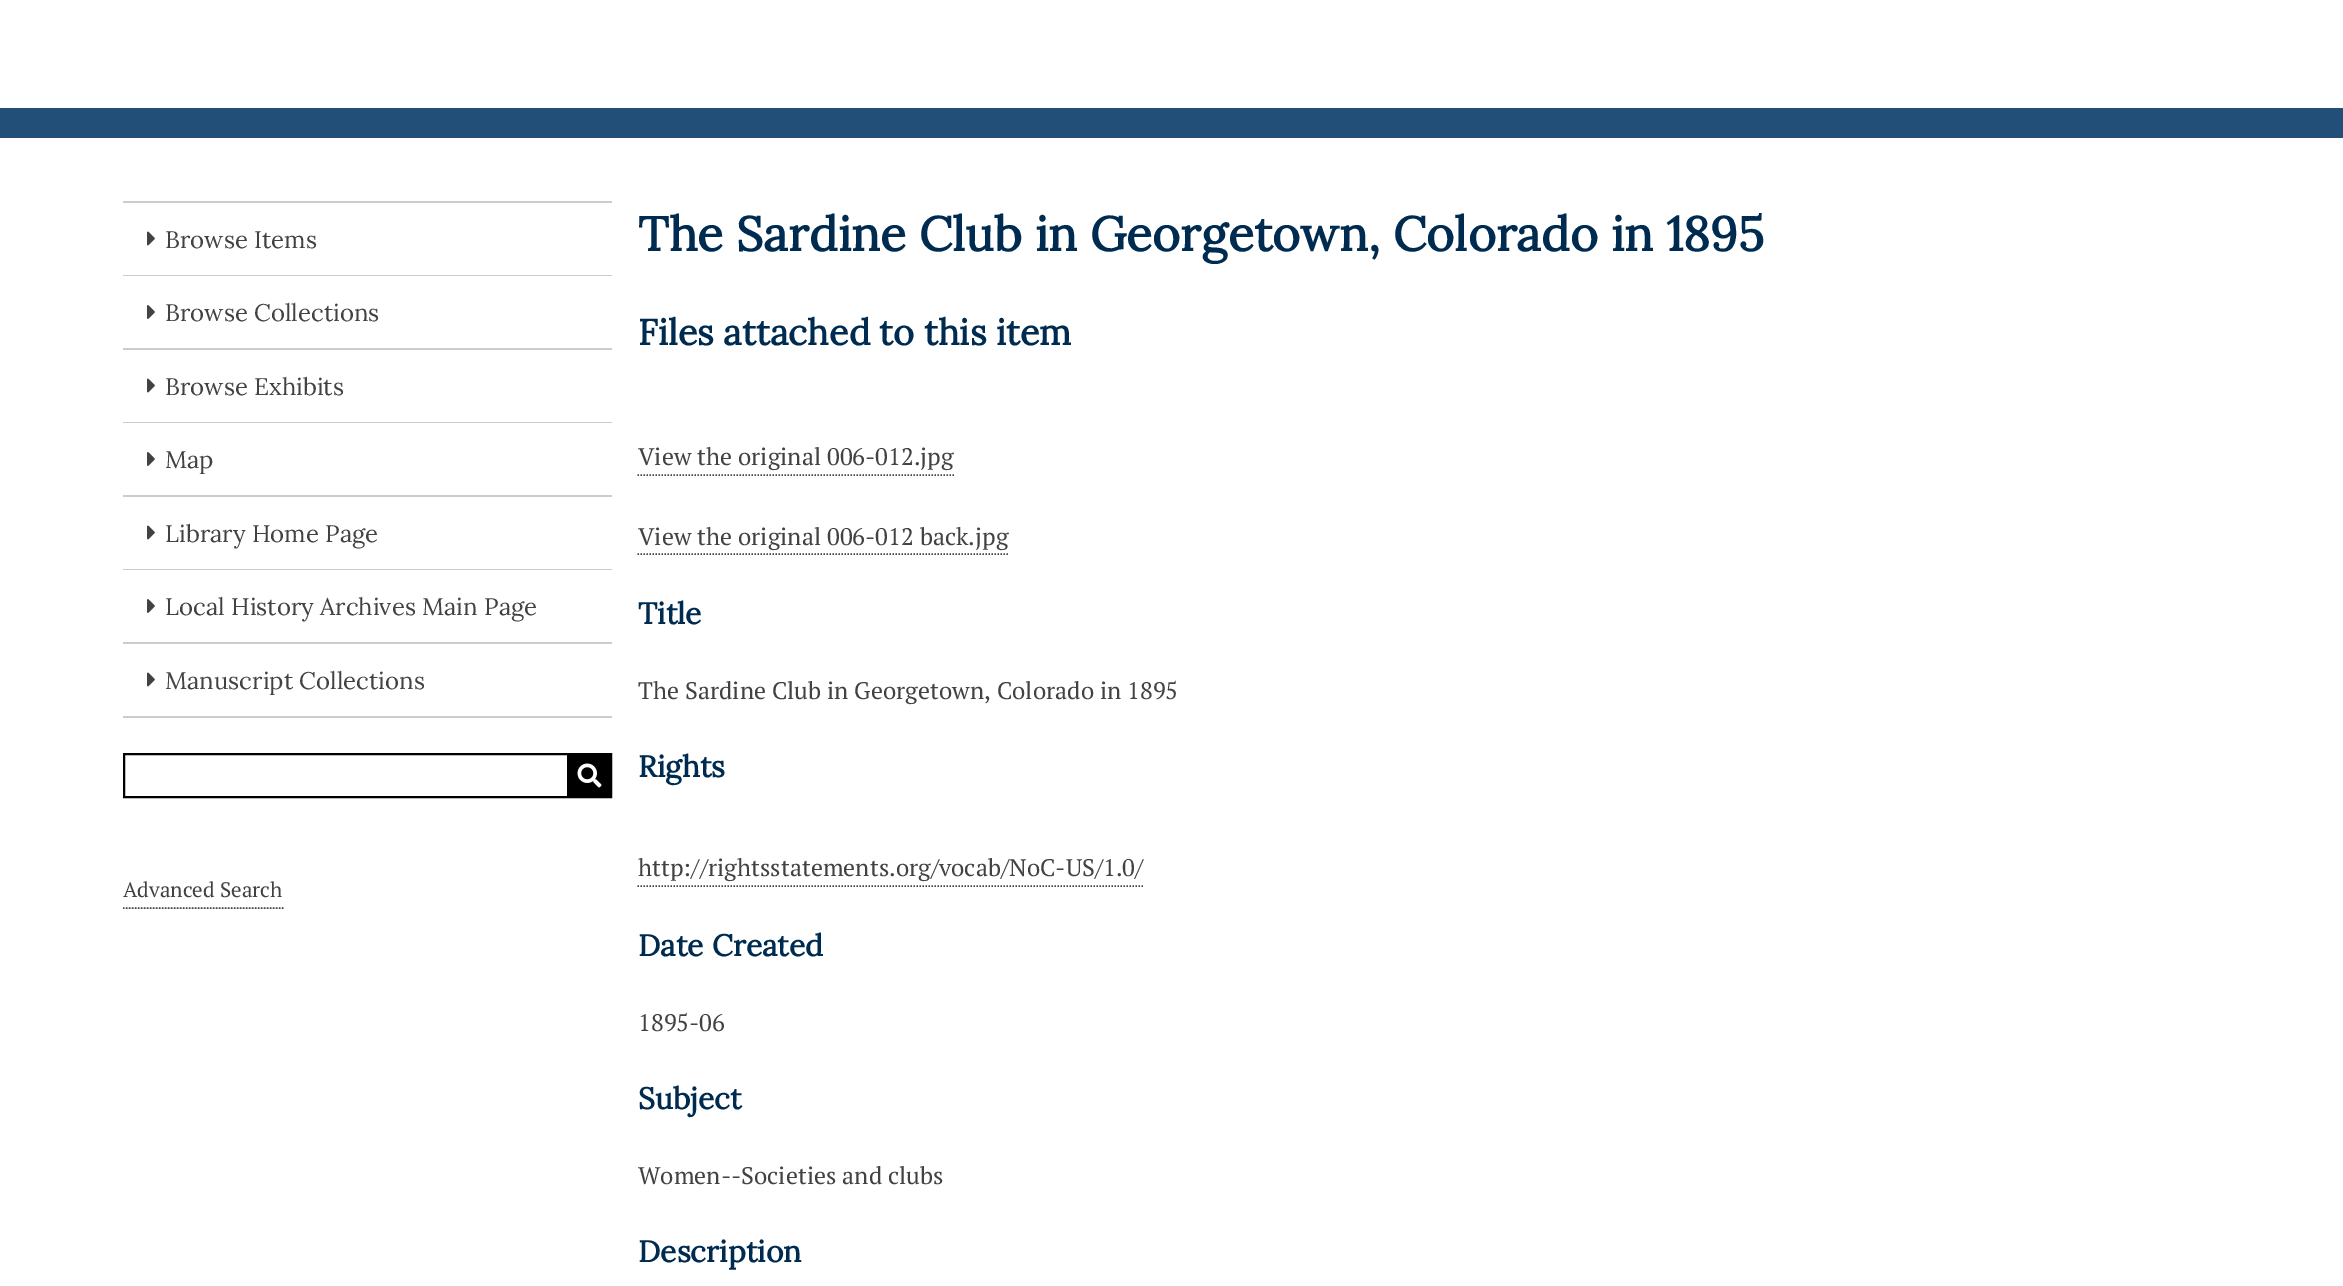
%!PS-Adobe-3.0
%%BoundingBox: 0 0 2343 1286
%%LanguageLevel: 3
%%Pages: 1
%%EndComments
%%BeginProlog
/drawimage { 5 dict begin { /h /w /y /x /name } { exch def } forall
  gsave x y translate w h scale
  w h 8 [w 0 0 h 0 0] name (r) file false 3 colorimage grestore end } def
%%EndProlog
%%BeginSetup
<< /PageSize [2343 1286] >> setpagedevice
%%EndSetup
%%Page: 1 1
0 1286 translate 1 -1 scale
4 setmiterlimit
1 setgray
0 0 2343 1286 rectfill
0.133 0.31 0.467 setrgbcolor
0 108 2343 30 rectfill
0.8 setgray
123 201 489 2 rectfill
123 275 489 1 rectfill
(images/1.raw) 147 231 8 15 drawimage
123 348 489 2 rectfill
(images/2.raw) 147 305 8 14 drawimage
123 422 489 1 rectfill
(images/1.raw) 147 378 8 15 drawimage
123 495 489 2 rectfill
(images/2.raw) 147 452 8 14 drawimage
123 569 489 1 rectfill
(images/1.raw) 147 525 8 15 drawimage
123 642 489 2 rectfill
(images/2.raw) 147 599 8 14 drawimage
123 716 489 2 rectfill
(images/1.raw) 147 672 8 15 drawimage
0 setgray
2 setlinewidth
124 754 487 43 rectstroke
567 755 43 41 rectfill
(images/3.raw) 577 763 25 25 drawimage
0.259 setgray
1.5 setlinewidth
[1.5 1.5] 0 setdash
newpath 123 908 moveto 283.5 908 lineto stroke
newpath 637.5 475 moveto 954 475 lineto stroke
newpath 637.5 554 moveto 1008 554 lineto stroke
newpath 637.5 886 moveto 1143 886 lineto stroke
/Lora-Regular [24 0 0 -24 0 0] selectfont
165 248 moveto (Browse Items) show
165 321 moveto (Browse Collections) show
165 395 moveto (Browse Exhibits) show
165 468 moveto (Map) show
165 542 moveto (Library Home Page) show
165 615 moveto (Local History Archives Main Page) show
165 689 moveto (Manuscript Collections) show
/PTSerif-Regular [21 0 0 -21 0 0] selectfont
123 897 moveto (Advanced Search) show
/Lora-Bold [48 0 0 -48 0 0] selectfont
0 0.169 0.314 setrgbcolor
638 251 moveto (The Sardine Club in Georgetown, Colorado in 1895) show
/Lora-Bold [36 0 0 -36 0 0] selectfont
638 345 moveto (Files attached to this item) show
/PTSerif-Regular [24 0 0 -24 0 0] selectfont
0.259 setgray
638 465 moveto (View the original 006-012.jpg) show
638 545 moveto (View the original 006-012 back.jpg) show
/Lora-Bold [30 0 0 -30 0 0] selectfont
0 0.169 0.314 setrgbcolor
638 624 moveto (Title) show
/PTSerif-Regular [24 0 0 -24 0 0] selectfont
0.259 setgray
638 699 moveto (The Sardine Club in Georgetown, Colorado in 1895) show
/Lora-Bold [30 0 0 -30 0 0] selectfont
0 0.169 0.314 setrgbcolor
638 777 moveto (Rights) show
/PTSerif-Regular [24 0 0 -24 0 0] selectfont
0.259 setgray
638 876 moveto (http://rightsstatements.org/vocab/NoC-US/1.0/) show
/Lora-Bold [30 0 0 -30 0 0] selectfont
0 0.169 0.314 setrgbcolor
638 956 moveto (Date Created) show
/PTSerif-Regular [24 0 0 -24 0 0] selectfont
0.259 setgray
638 1031 moveto (1895-06) show
/Lora-Bold [30 0 0 -30 0 0] selectfont
0 0.169 0.314 setrgbcolor
638 1109 moveto (Subject) show
/PTSerif-Regular [24 0 0 -24 0 0] selectfont
0.259 setgray
638 1184 moveto (Women--Societies and clubs) show
/Lora-Bold [30 0 0 -30 0 0] selectfont
0 0.169 0.314 setrgbcolor
638 1262 moveto (Description) show
showpage
%%EOF
